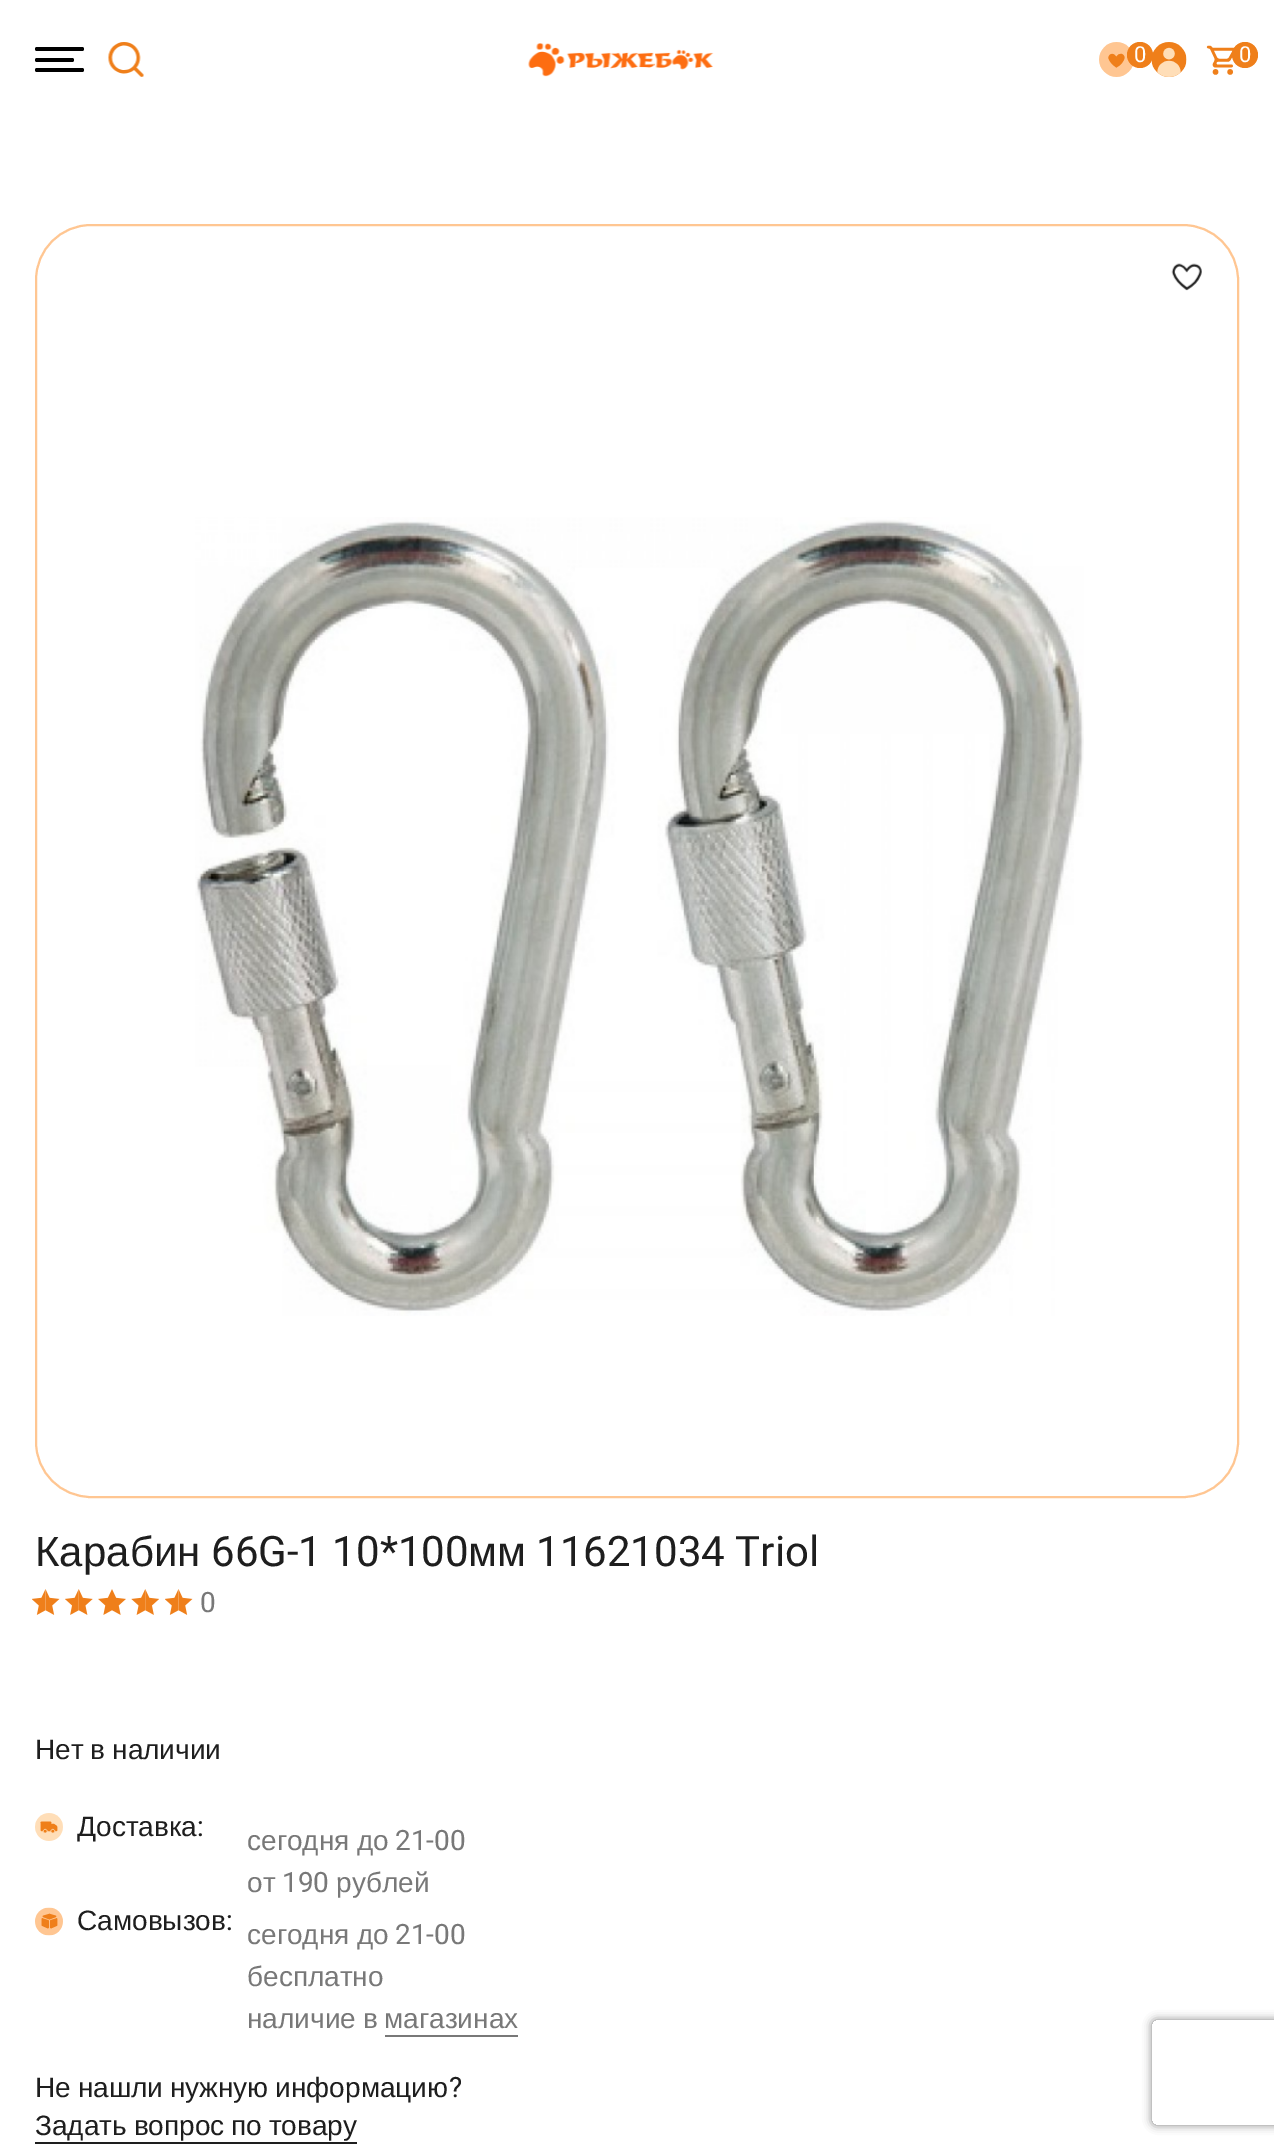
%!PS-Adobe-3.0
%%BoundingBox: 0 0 1274 2149
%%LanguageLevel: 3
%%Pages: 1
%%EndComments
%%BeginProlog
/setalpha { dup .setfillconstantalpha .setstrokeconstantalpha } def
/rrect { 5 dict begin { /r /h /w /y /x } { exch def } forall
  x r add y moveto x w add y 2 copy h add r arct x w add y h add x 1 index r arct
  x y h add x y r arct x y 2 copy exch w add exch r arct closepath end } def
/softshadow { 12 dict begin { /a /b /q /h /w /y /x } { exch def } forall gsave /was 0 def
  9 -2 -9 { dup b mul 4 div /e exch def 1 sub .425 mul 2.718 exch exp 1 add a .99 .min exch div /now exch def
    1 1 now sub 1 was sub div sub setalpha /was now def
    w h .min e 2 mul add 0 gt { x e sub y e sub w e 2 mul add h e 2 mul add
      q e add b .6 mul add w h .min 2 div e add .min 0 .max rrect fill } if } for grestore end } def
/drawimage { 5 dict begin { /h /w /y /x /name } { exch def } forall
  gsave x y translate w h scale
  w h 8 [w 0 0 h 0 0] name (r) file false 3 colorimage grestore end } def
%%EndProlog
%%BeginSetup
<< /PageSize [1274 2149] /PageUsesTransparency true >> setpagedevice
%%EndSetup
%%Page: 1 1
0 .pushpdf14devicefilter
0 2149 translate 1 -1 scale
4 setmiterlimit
1 setgray
0 0 1274 2149 rectfill
0 setgray
35 47 49 4 2 rrect fill
35 58 39 4 2 rrect fill
35 68 49 4 2 rrect fill
(images/1.raw) 108 42 36 35 drawimage
(images/2.raw) 528 43 186 34 drawimage
(images/3.raw) 1099 42 34 35 drawimage
(images/4.raw) 1151 42 36 35 drawimage
0.937 0.498 0.102 setrgbcolor
newpath 1140 55 13 0 360 arc closepath fill
(images/5.raw) 1206 45 29 30 drawimage
newpath 1245 55 13 0 360 arc closepath fill
1 0.776 0.573 setrgbcolor
2 setlinewidth
36 225 1202 1272 55 rrect stroke
(images/6.raw) 1171 263 31 28 drawimage
(images/7.raw) 195 517 889 799 drawimage
(images/8.raw) 32 1589 28 26 drawimage
(images/9.raw) 65 1589 28 26 drawimage
(images/10.raw) 98 1589 28 26 drawimage
(images/11.raw) 131 1589 28 26 drawimage
(images/8.raw) 165 1589 28 26 drawimage
(images/12.raw) 35 1813 28 28 drawimage
(images/13.raw) 35 1907 28 29 drawimage
0.471 setgray
385 2035 133 2 rectfill
0.118 setgray
35 2142 322 2 rectfill
gsave
newpath 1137 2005 moveto 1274 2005 lineto 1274 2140 lineto 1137 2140 lineto closepath 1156 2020 moveto 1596 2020 lineto 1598 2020 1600 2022 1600 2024 curveto 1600 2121 lineto 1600 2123 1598 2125 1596 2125 curveto 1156 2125 lineto 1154 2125 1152 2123 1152 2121 curveto 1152 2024 lineto 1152 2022 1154 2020 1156 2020 curveto closepath eoclip newpath
0.502 setgray
1152 2020 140 105 4 4.5 1 softshadow
grestore
/Heebo-Regular [22 0 0 -22 0 0] selectfont
1 setgray
1134 62 moveto (0) show
1239 62 moveto (0) show
/LiberationSans-Regular [42 0 0 -42 0 0] selectfont
0.118 setgray
35 1566 moveto (Карабин) show
/Heebo-Regular [42 0 0 -42 0 0] selectfont
211 1566 moveto (66G-1 10*100) show
/LiberationSans-Regular [42 0 0 -42 0 0] selectfont
468 1566 moveto (мм) show
/Heebo-Regular [42 0 0 -42 0 0] selectfont
536 1566 moveto (11621034 Triol) show
/Heebo-Regular [28 0 0 -28 0 0] selectfont
0.471 setgray
200 1612 moveto (0) show
/LiberationSans-Regular [28 0 0 -28 0 0] selectfont
0.118 setgray
35 1759 moveto -1 0 32 (Нет в наличии) widthshow
77 1836 moveto (Доставка) show
/Heebo-Regular [28 0 0 -28 0 0] selectfont
197 1836 moveto (:) show
/LiberationSans-Regular [28 0 0 -28 0 0] selectfont
0.471 setgray
247 1850 moveto (сегодня до) show
/Heebo-Regular [28 0 0 -28 0 0] selectfont
395 1850 moveto (21-00) show
/LiberationSans-Regular [28 0 0 -28 0 0] selectfont
247 1892 moveto (от) show
/Heebo-Regular [28 0 0 -28 0 0] selectfont
282 1892 moveto (190) show
/LiberationSans-Regular [28 0 0 -28 0 0] selectfont
336 1892 moveto (рублей) show
0.118 setgray
77 1930 moveto (Самовызов) show
/Heebo-Regular [28 0 0 -28 0 0] selectfont
226 1930 moveto (:) show
/LiberationSans-Regular [28 0 0 -28 0 0] selectfont
0.471 setgray
247 1944 moveto (сегодня до) show
/Heebo-Regular [28 0 0 -28 0 0] selectfont
395 1944 moveto (21-00) show
/LiberationSans-Regular [28 0 0 -28 0 0] selectfont
247 1986 moveto (бесплатно) show
247 2028 moveto -1 0 32 (наличие в) widthshow
384 2028 moveto (магазинах) show
0.118 setgray
35 2097 moveto -1 0 32 (Не нашли нужную информацию) widthshow
/Heebo-Regular [28 0 0 -28 0 0] selectfont
449 2097 moveto (?) show
/LiberationSans-Regular [28 0 0 -28 0 0] selectfont
35 2135 moveto -1 0 32 (Задать вопрос по товару) widthshow
.poppdf14devicefilter showpage
%%EOF
